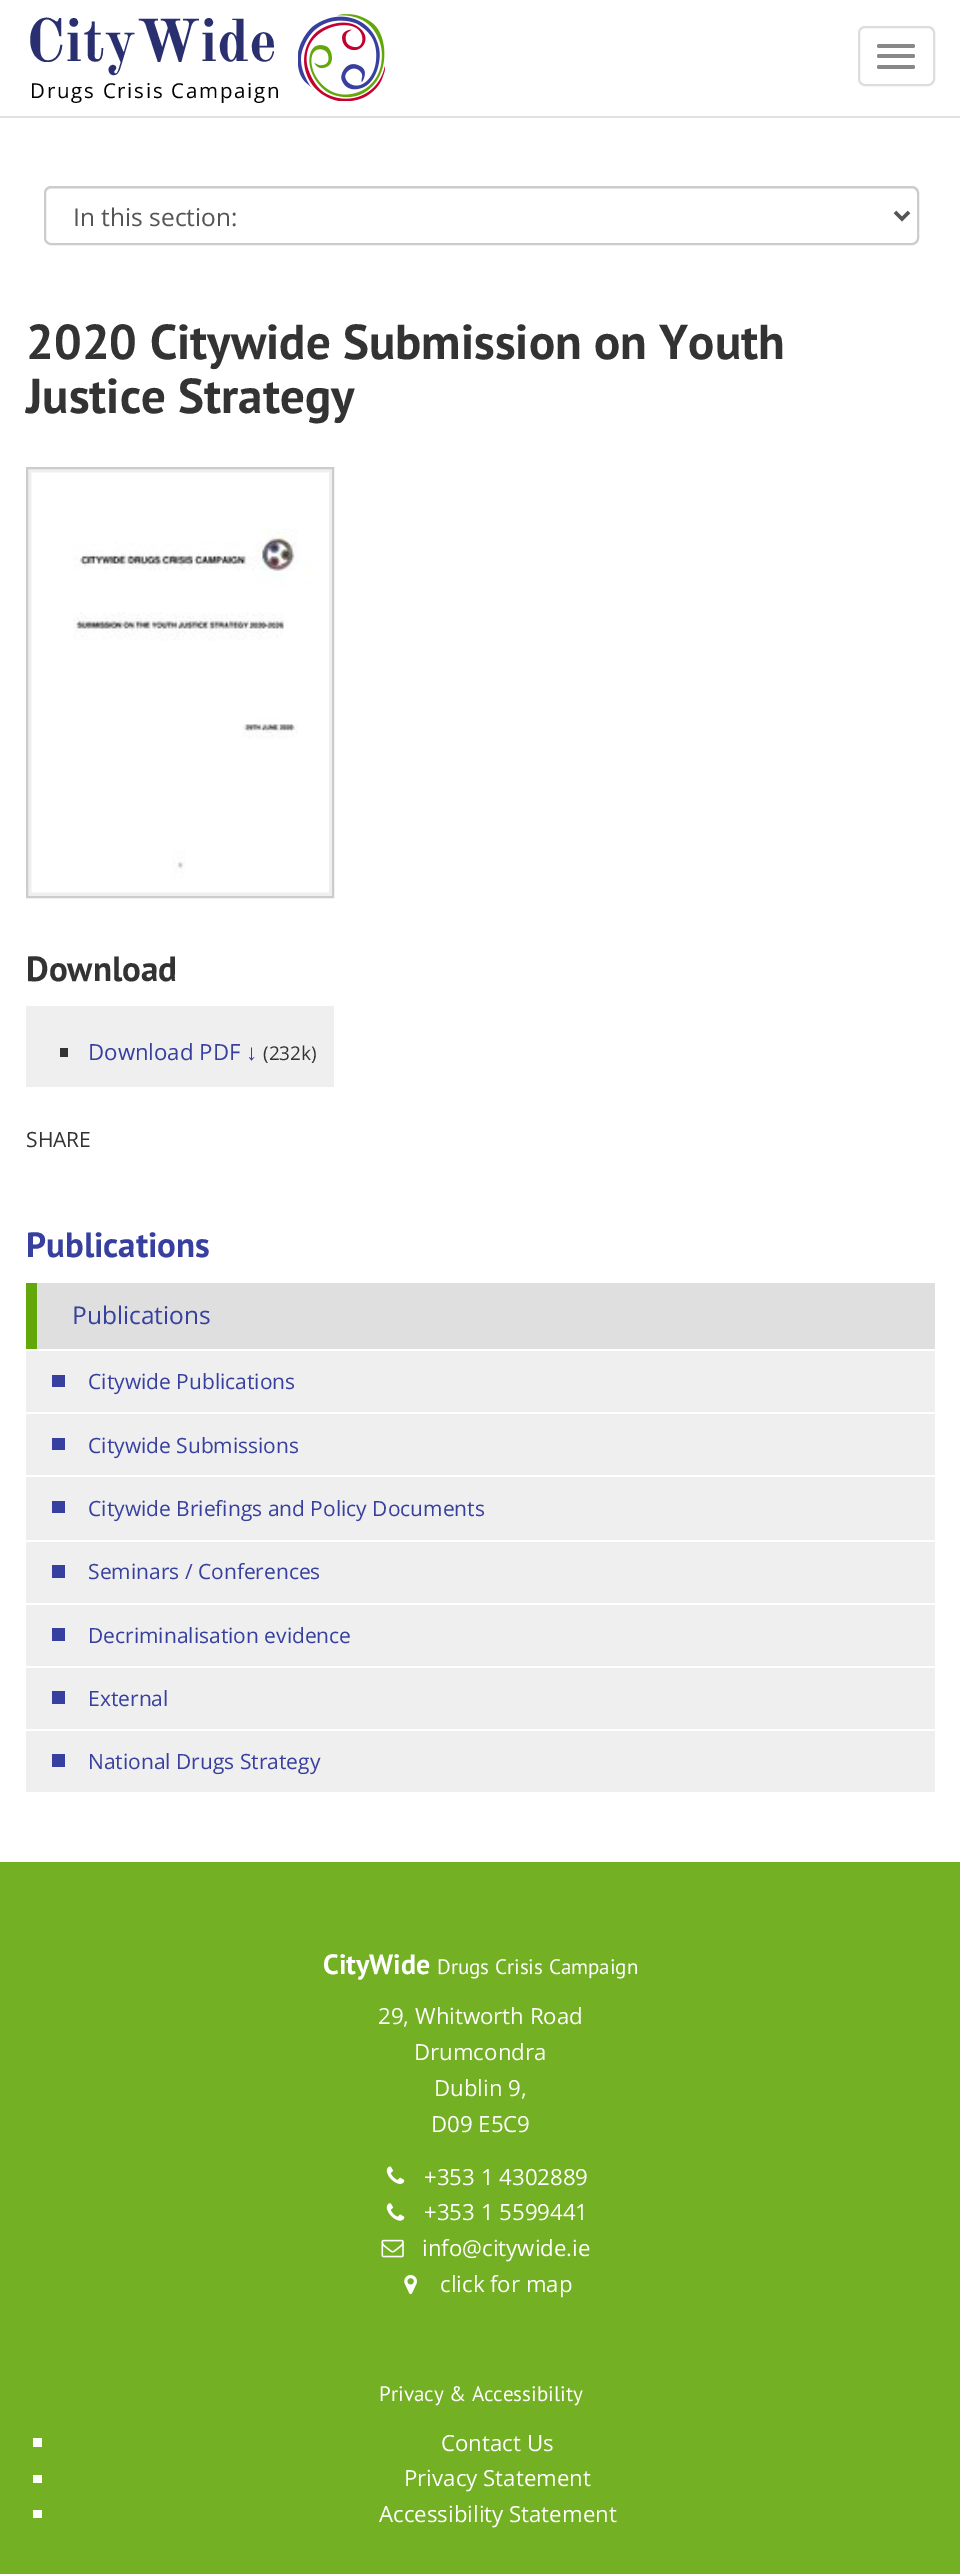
%!PS-Adobe-3.0
%%BoundingBox: 0 0 960 2574
%%LanguageLevel: 3
%%Pages: 1
%%EndComments
%%BeginProlog
/rrect { 5 dict begin { /r /h /w /y /x } { exch def } forall
  x r add y moveto x w add y 2 copy h add r arct x w add y h add x 1 index r arct
  x y h add x y r arct x y 2 copy exch w add exch r arct closepath end } def
/drawimage { 5 dict begin { /h /w /y /x /name } { exch def } forall
  gsave x y translate w h scale
  w h 8 [w 0 0 h 0 0] name (r) file false 3 colorimage grestore end } def
%%EndProlog
%%BeginSetup
<< /PageSize [960 2574] >> setpagedevice
%%EndSetup
%%Page: 1 1
0 2574 translate 1 -1 scale
4 setmiterlimit
1 setgray
0 0 960 2574 rectfill
0.886 setgray
0 116 960 2 rectfill
(images/1.raw) 298 14 87 87 drawimage
0.867 setgray
2 setlinewidth
859 27 75 58 6 rrect stroke
0.533 setgray
877 44 38 4 2 rrect fill
877 54 38 4 2 rrect fill
877 65 38 4 2 rrect fill
0.925 setgray
newpath 51 189 moveto 912 189 lineto 915 189 917 191 917 194 curveto 917 192 lineto 917 189 915 187 912 187 curveto 51 187 lineto 48 187 46 189 46 192 curveto 46 194 lineto 46 191 48 189 51 189 curveto closepath fill
0.8 setgray
45 187 873 57 6 rrect stroke
0.333 setgray
3.5 setlinewidth
newpath 895 212 moveto 902 219 lineto 909 212 lineto stroke
0.937 setgray
newpath 27 468 moveto 333 468 lineto 333 897 lineto 27 897 lineto closepath gsave fill grestore
0.8 setgray
2 setlinewidth
stroke
(images/2.raw) 31 472 298 421 drawimage
0.937 setgray
26 1006 308 81 rectfill
0.2 setgray
60 1048 8 9 rectfill
0.875 setgray
37 1283 898 66 rectfill
0.388 0.655 0.039 setrgbcolor
26 1283 11 66 rectfill
0.937 setgray
26 1351 909 61 rectfill
0.216 0.247 0.624 setrgbcolor
52 1375 13 12 rectfill
0.937 setgray
26 1414 909 61 rectfill
0.216 0.247 0.624 setrgbcolor
52 1438 13 12 rectfill
0.937 setgray
26 1477 909 63 rectfill
0.216 0.247 0.624 setrgbcolor
52 1501 13 12 rectfill
0.937 setgray
26 1542 909 61 rectfill
0.216 0.247 0.624 setrgbcolor
52 1565 13 13 rectfill
0.937 setgray
26 1605 909 61 rectfill
0.216 0.247 0.624 setrgbcolor
52 1628 13 13 rectfill
0.937 setgray
26 1668 909 61 rectfill
0.216 0.247 0.624 setrgbcolor
52 1691 13 13 rectfill
0.937 setgray
26 1731 909 61 rectfill
0.216 0.247 0.624 setrgbcolor
52 1754 13 13 rectfill
0.451 0.69 0.137 setrgbcolor
0 1862 960 712 rectfill
(images/3.raw) 386 2166 19 18 drawimage
(images/4.raw) 386 2203 19 18 drawimage
(images/5.raw) 381 2239 23 19 drawimage
(images/6.raw) 404 2275 13 20 drawimage
1 setgray
33 2438 9 9 rectfill
33 2475 9 8 rectfill
33 2510 9 8 rectfill
/OldStandardTT-Bold [59.5 0 0 -59.5 0 0] selectfont
0.165 0.184 0.435 setrgbcolor
26 61 moveto (CityWide) show
/OpenSans-Regular [20.5 0 0 -20.5 0 0] selectfont
0 setgray
30 98 moveto 1.75 0 (Drugs Crisis Campaign) ashow
/OpenSans-Regular [24.5 0 0 -24.5 0 0] selectfont
0.333 setgray
73 226 moveto (In this section:) show
/PTSans-Bold [49 0 0 -49 0 0] selectfont
0.2 setgray
26 359 moveto (2020 Citywide Submission on Youth) show
26 413 moveto (Justice Strategy) show
/PTSans-Bold [35 0 0 -35 0 0] selectfont
26 981 moveto (Download) show
/OpenSans-Regular [22.25 0 0 -22.25 0 0] selectfont
0.216 0.247 0.624 setrgbcolor
88 1060 moveto (Download PDF) show
/LiberationSans-Regular [22.25 0 0 -22.25 0 0] selectfont
246 1060 moveto (↓) show
/OpenSans-Regular [19 0 0 -19 0 0] selectfont
0.2 setgray
263 1060 moveto (\(232k\)) show
/OpenSans-Regular [21 0 0 -21 0 0] selectfont
26 1147 moveto (SHARE) show
/PTSans-Bold [35 0 0 -35 0 0] selectfont
0.216 0.247 0.624 setrgbcolor
26 1257 moveto (Publications) show
/OpenSans-Regular [24.5 0 0 -24.5 0 0] selectfont
72 1324 moveto (Publications) show
/OpenSans-Regular [21 0 0 -21 0 0] selectfont
88 1389 moveto (Citywide Publications) show
88 1453 moveto (Citywide Submissions) show
88 1516 moveto (Citywide Briefings and Policy Documents) show
88 1579 moveto (Seminars / Conferences) show
88 1643 moveto (Decriminalisation evidence) show
88 1706 moveto (External) show
88 1769 moveto (National Drugs Strategy) show
/PTSans-Bold [28 0 0 -28 0 0] selectfont
1 setgray
323 1974 moveto (CityWide) show
/PTSans-Regular [21 0 0 -21 0 0] selectfont
437 1974 moveto (Drugs Crisis Campaign) show
/OpenSans-Regular [22.25 0 0 -22.25 0 0] selectfont
378 2024 moveto (29, Whitworth Road) show
414 2060 moveto (Drumcondra) show
434 2096 moveto (Dublin 9,) show
431 2132 moveto (D09 E5C9) show
424 2185 moveto (+353 1 4302889) show
424 2220 moveto (+353 1 5599441) show
422 2256 moveto (info@citywide.ie) show
440 2292 moveto (click for map) show
/PTSans-Regular [21 0 0 -21 0 0] selectfont
379 2401 moveto (Privacy & Accessibility) show
/OpenSans-Regular [22.25 0 0 -22.25 0 0] selectfont
441 2451 moveto (Contact Us) show
404 2486 moveto (Privacy Statement) show
379 2522 moveto (Accessibility Statement) show
showpage
%%EOF
